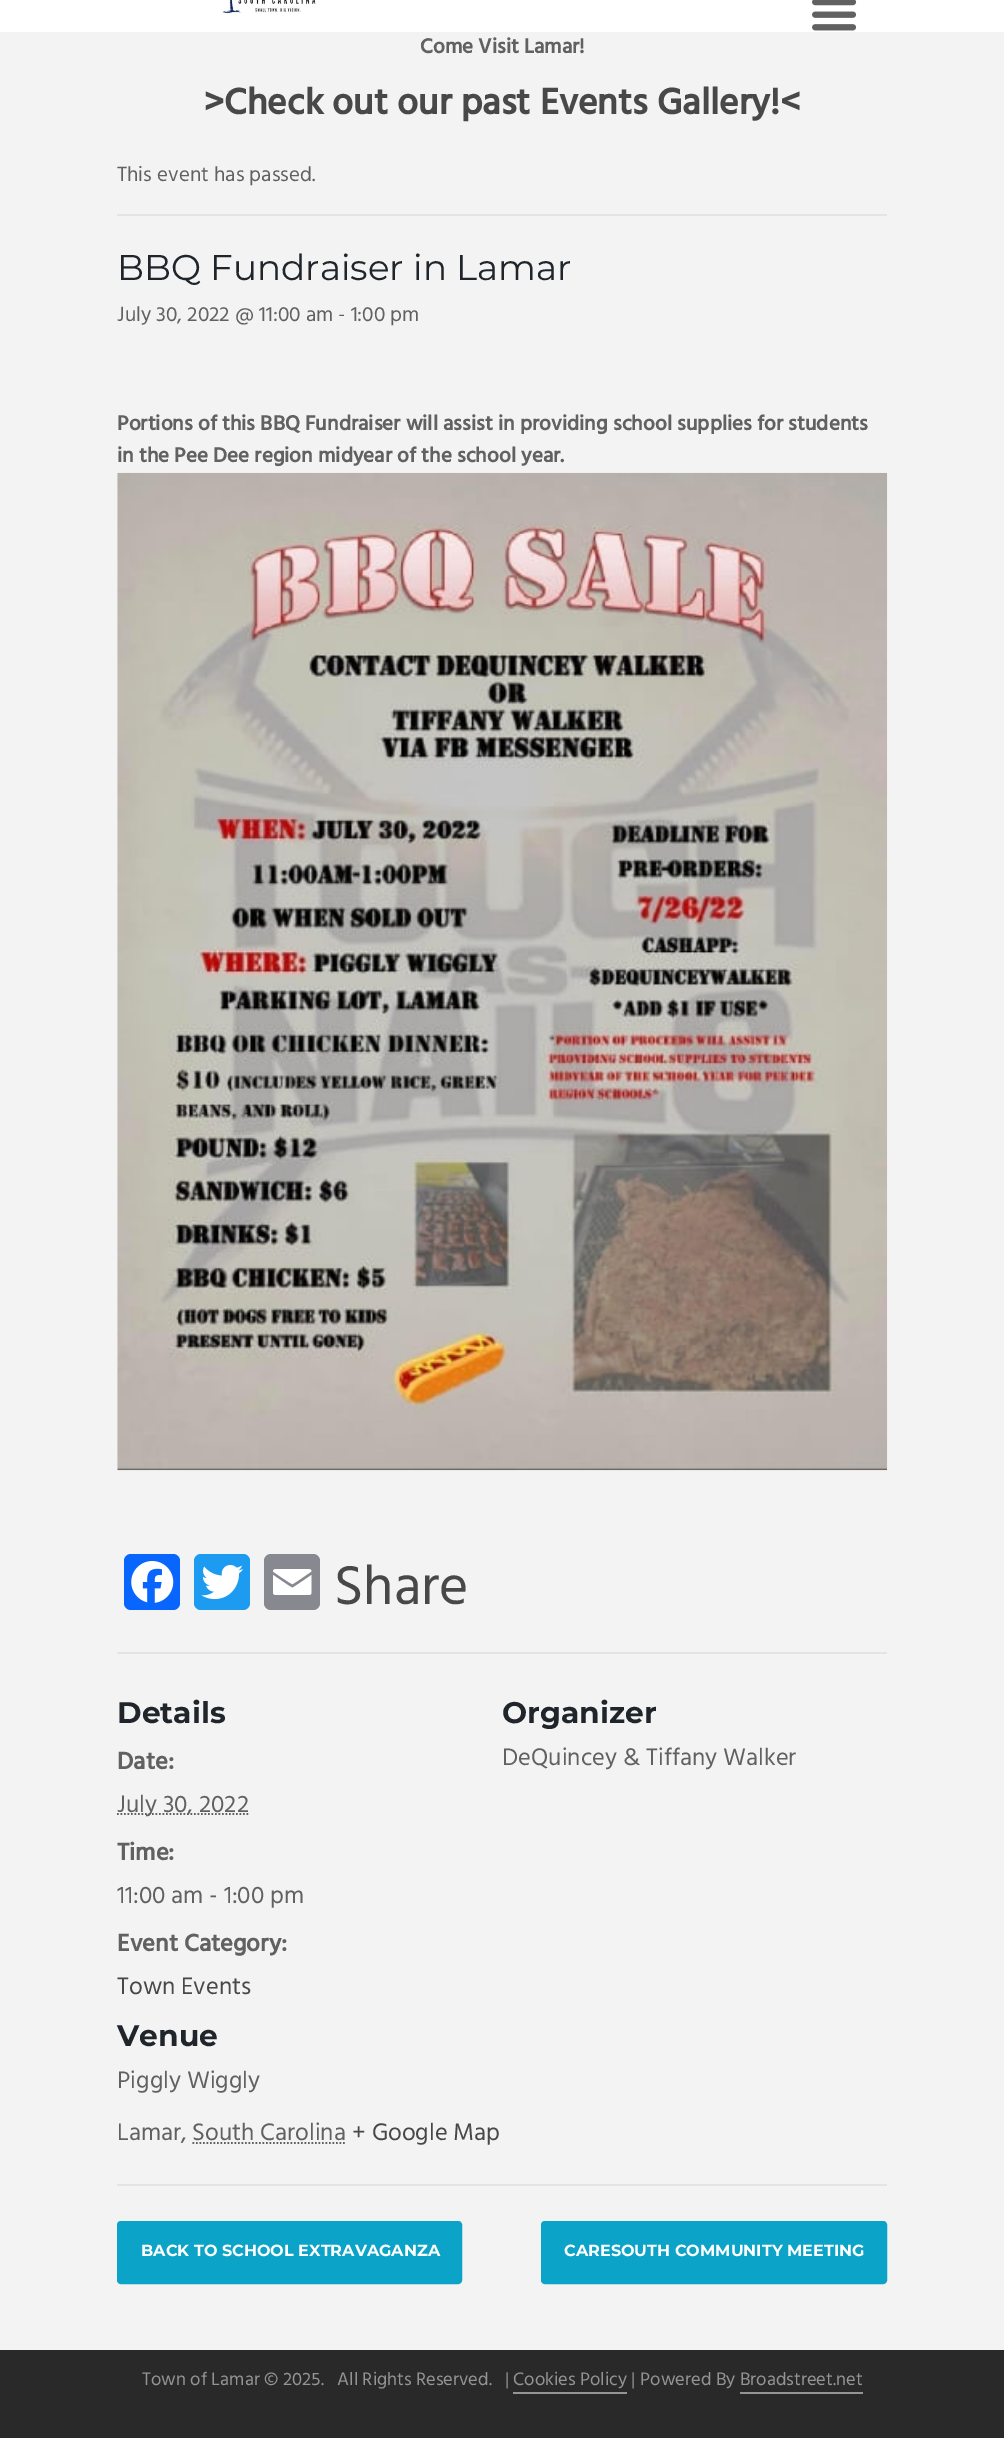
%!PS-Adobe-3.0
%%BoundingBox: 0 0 1004 2438
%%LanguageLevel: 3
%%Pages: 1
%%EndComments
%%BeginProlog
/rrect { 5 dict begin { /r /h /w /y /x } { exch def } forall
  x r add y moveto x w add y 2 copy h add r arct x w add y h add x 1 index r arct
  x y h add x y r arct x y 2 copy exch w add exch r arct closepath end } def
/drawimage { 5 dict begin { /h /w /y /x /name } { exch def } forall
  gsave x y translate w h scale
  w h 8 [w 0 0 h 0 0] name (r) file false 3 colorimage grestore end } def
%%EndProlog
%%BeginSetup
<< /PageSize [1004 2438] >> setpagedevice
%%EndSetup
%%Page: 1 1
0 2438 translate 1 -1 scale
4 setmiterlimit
0.953 setgray
0 0 1004 2438 rectfill
1 setgray
0 0 1004 32 rectfill
(images/1.raw) 222 0 94 15 drawimage
(images/2.raw) 812 0 45 31 drawimage
0.894 setgray
117 214 770 2 rectfill
(images/3.raw) 117 472 771 999 drawimage
0.031 0.4 1 setrgbcolor
124 1554 56 56 7 rrect fill
(images/4.raw) 131 1561 43 42 drawimage
0.114 0.608 0.941 setrgbcolor
194 1554 56 56 7 rrect fill
(images/5.raw) 201 1564 43 36 drawimage
0.533 0.537 0.565 setrgbcolor
264 1554 56 56 7 rrect fill
(images/6.raw) 273 1569 39 26 drawimage
0.894 setgray
117 1652 770 2 rectfill
0.38 setgray
1.8 setlinewidth
[1.75 1.75] 0 setdash
newpath 117 1814 moveto 249 1814 lineto stroke
newpath 192.5 2143 moveto 346 2143 lineto stroke
0.894 setgray
117 2184 770 2 rectfill
0.043 0.639 0.78 setrgbcolor
119 2223 341 59 2 rrect gsave fill grestore
4 setlinewidth
[] 0 setdash
stroke
543 2223 342 59 2 rrect gsave fill grestore
stroke
0.161 setgray
0 2350 1004 88 rectfill
0.58 setgray
513 2392 114 2 rectfill
740 2392 123 2 rectfill
/Hind-Bold [21 0 0 -21 0 0] selectfont
0.38 setgray
420 53 moveto (Come Visit Lamar!) show
/Hind-Bold [37.3 0 0 -37.3 0 0] selectfont
0.282 setgray
204 114 moveto (>Check out our past Events Gallery!<) show
/Hind-Regular [21 0 0 -21 0 0] selectfont
0.38 setgray
117 181 moveto (This event has passed.) show
/Montserrat-Thin [35.75 0 0 -35.75 0 0] selectfont
0.122 0.145 0.169 setrgbcolor
117 280 moveto (BBQ Fundraiser in Lamar) show
/Hind-Regular [21 0 0 -21 0 0] selectfont
0.38 setgray
117 321 moveto (July 30, 2022 @ 11:00 am - 1:00 pm) show
/Hind-Bold [21 0 0 -21 0 0] selectfont
117 430 moveto (Portions of this BBQ Fundraiser will assist in providing school supplies for students) show
117 462 moveto (in the Pee Dee region midyear of the school year.) show
/Hind-Regular [56 0 0 -56 0 0] selectfont
0.282 setgray
334 1604 moveto (Share) show
/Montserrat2-Thin [29.75 0 0 -29.75 0 0] selectfont
0.122 0.145 0.169 setrgbcolor
117 1723 moveto (Details) show
/Hind-Bold [24.5 0 0 -24.5 0 0] selectfont
0.38 setgray
117 1769 moveto (Date:) show
/Hind-Regular [24.5 0 0 -24.5 0 0] selectfont
117 1812 moveto (July 30, 2022) show
/Hind-Bold [24.5 0 0 -24.5 0 0] selectfont
117 1860 moveto (Time:) show
/Hind-Regular [24.5 0 0 -24.5 0 0] selectfont
117 1903 moveto (11:00 am - 1:00 pm) show
/Hind-Bold [24.5 0 0 -24.5 0 0] selectfont
117 1951 moveto (Event Category:) show
/Hind-Regular [24.5 0 0 -24.5 0 0] selectfont
0.282 setgray
117 1994 moveto (Town Events) show
/Montserrat2-Thin [29.75 0 0 -29.75 0 0] selectfont
0.122 0.145 0.169 setrgbcolor
502 1723 moveto (Organizer) show
/Hind-Regular [24.5 0 0 -24.5 0 0] selectfont
0.38 setgray
502 1765 moveto (DeQuincey & Tiffany Walker) show
/Montserrat2-Thin [29.75 0 0 -29.75 0 0] selectfont
0.122 0.145 0.169 setrgbcolor
117 2046 moveto (Venue) show
/Hind-Regular [24.5 0 0 -24.5 0 0] selectfont
0.38 setgray
117 2088 moveto (Piggly Wiggly) show
117 2140 moveto (Lamar, South Carolina) show
0.282 setgray
352 2140 moveto (+ Google Map) show
/Montserrat2-Thin [16.1 0 0 -16.1 0 0] selectfont
1 setgray
141 2256 moveto (BACK TO SCHOOL EXTRAVAGANZA) show
564 2256 moveto (CARESOUTH COMMUNITY MEETING) show
/Hind-Regular [18.5 0 0 -18.5 0 0] selectfont
0.58 setgray
142 2385 moveto (Town of Lamar © 2025.   All Rights Reserved.   |) show
513 2385 moveto (Cookies Policy | Powered By Broadstreet.net) show
showpage
%%EOF
